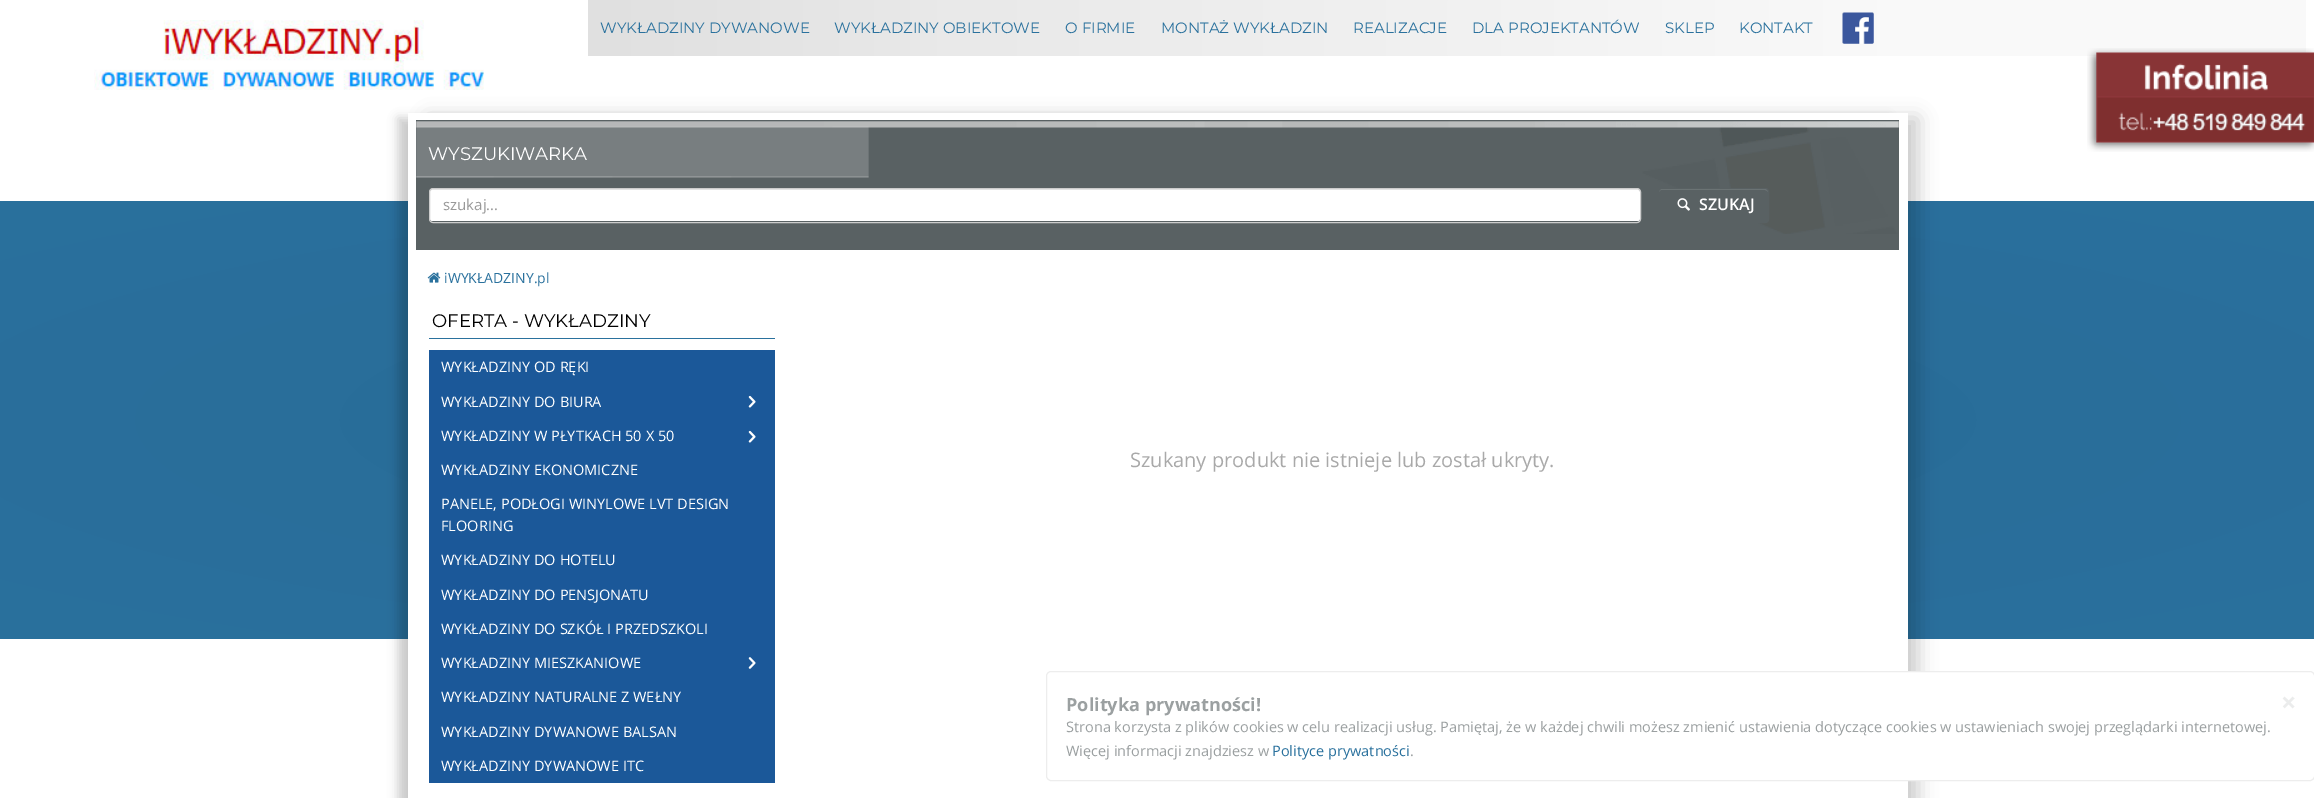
%!PS-Adobe-3.0
%%BoundingBox: 0 0 2314 798
%%LanguageLevel: 3
%%Pages: 1
%%EndComments
%%BeginProlog
/setalpha { dup .setfillconstantalpha .setstrokeconstantalpha } def
/rrect { 5 dict begin { /r /h /w /y /x } { exch def } forall
  x r add y moveto x w add y 2 copy h add r arct x w add y h add x 1 index r arct
  x y h add x y r arct x y 2 copy exch w add exch r arct closepath end } def
/softshadow { 12 dict begin { /a /b /q /h /w /y /x } { exch def } forall gsave /was 0 def
  9 -2 -9 { dup b mul 4 div /e exch def 1 sub .425 mul 2.718 exch exp 1 add a .99 .min exch div /now exch def
    1 1 now sub 1 was sub div sub setalpha /was now def
    w h .min e 2 mul add 0 gt { x e sub y e sub w e 2 mul add h e 2 mul add
      q e add b .6 mul add w h .min 2 div e add .min 0 .max rrect fill } if } for grestore end } def
/drawimage { 5 dict begin { /h /w /y /x /name } { exch def } forall
  gsave x y translate w h scale
  w h 8 [w 0 0 h 0 0] name (r) file false 3 colorimage grestore end } def
%%EndProlog
%%BeginSetup
<< /PageSize [2314 798] /PageUsesTransparency true >> setpagedevice
%%EndSetup
%%Page: 1 1
0 .pushpdf14devicefilter
0 798 translate 1 -1 scale
4 setmiterlimit
1 setgray
0 0 2314 798 rectfill
(images/1.raw) 94 20 390 70 drawimage
gsave newpath 588 0 moveto 2306 0 lineto 2306 56 lineto 588 56 lineto closepath clip newpath
<< /ShadingType 2 /ColorSpace /DeviceRGB /Coords [2306 28 588 28] /Extend [true true] /Function << /FunctionType 3 /Domain [0 1] /Functions [<< /FunctionType 2 /Domain [0 1] /C0 [0.976 0.976 0.976] /C1 [0.976 0.976 0.976] /N 1 >> << /FunctionType 2 /Domain [0 1] /C0 [0.976 0.976 0.976] /C1 [0.945 0.945 0.945] /N 1 >> << /FunctionType 2 /Domain [0 1] /C0 [0.945 0.945 0.945] /C1 [0.914 0.914 0.914] /N 1 >> << /FunctionType 2 /Domain [0 1] /C0 [0.914 0.914 0.914] /C1 [0.878 0.878 0.878] /N 1 >>] /Bounds [0.24 0.5 0.79] /Encode [0 1 0 1 0 1 0 1] >> >> shfill grestore
(images/2.raw) 1842 12 32 32 drawimage
gsave newpath 0 201 moveto 2314 201 lineto 2314 639 lineto 0 639 lineto closepath clip newpath 1158 420 translate 1637 309 scale
<< /ShadingType 3 /ColorSpace /DeviceRGB /Coords [0 0 0 0 0 1] /Extend [true true] /Function << /FunctionType 2 /Domain [0 1] /C0 [0.153 0.416 0.592] /C1 [0.165 0.443 0.616] /N 1 >> >> shfill grestore
0 setgray
398 118 1490 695 0 5 0.2 softshadow
428 118 1490 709 0 9.5 0.2 softshadow
1 setgray
408 113 1500 685 rectfill
0.349 0.38 0.388 setrgbcolor
416 120 1483 130 rectfill
(images/3.raw) 416 121 1483 113 drawimage
(images/4.raw) 2087 48 227 104 drawimage
1 setgray
430 189 1210 32 2.5 rrect fill
0.07 setalpha
0 setgray
newpath 432 190 moveto 1638 190 lineto 1639 190 1640 191 1640 192 curveto 1640 190 1639 189 1638 189 curveto 432 189 lineto 431 189 430 190 430 192 curveto 430 191 431 190 432 190 curveto closepath fill
1 setalpha
0.8 setgray
429.5 188.5 1211 34 3.5 rrect stroke
0.349 0.38 0.388 setrgbcolor
1658 188 111 35 4 rrect fill
0.447 0.475 0.478 setrgbcolor
newpath 1661 190 moveto 1765 190 lineto 1766 190 1768 191 1768 192 curveto 1768 190 1767 189 1766 189 curveto 1661 189 lineto 1660 189 1659 191 1659 192 curveto 1659 191 1660 190 1661 190 curveto closepath fill
0.349 0.38 0.388 setrgbcolor
1658.5 188.5 110 34 3.5 rrect stroke
(images/5.raw) 1677 198 13 13 drawimage
(images/6.raw) 427 272 14 11 drawimage
0.165 0.443 0.616 setrgbcolor
429 338 346 1 rectfill
0.106 0.345 0.6 setrgbcolor
429 350 346 433 rectfill
(images/7.raw) 748 395 8 13 drawimage
(images/7.raw) 748 430 8 13 drawimage
(images/8.raw) 748 657 8 12 drawimage
1 setgray
1046.5 671.5 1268 109 4.5 rrect gsave fill grestore
0.929 setgray
stroke
/Montserrat-Regular [15 0 0 -15 0 0] selectfont
0.165 0.443 0.616 setrgbcolor
600 33 moveto (WYKŁADZINY DYWANOWE) show
834 33 moveto (WYKŁADZINY OBIEKTOWE) show
1065 33 moveto (O FIRMIE) show
1161 33 moveto (MONTAŻ WYKŁADZIN) show
1353 33 moveto (REALIZACJE) show
1472 33 moveto (DLA PROJEKTANTÓW) show
1665 33 moveto (SKLEP) show
1739 33 moveto (KONTAKT) show
/Montserrat-Regular [18.1 0 0 -18.1 0 0] selectfont
1 setgray
428 160 moveto (WYSZUKIWARKA) show
/OpenSans-Regular [15 0 0 -15 0 0] selectfont
0.6 setgray
443 210 moveto (szukaj...) show
/OpenSans-SemiBold [16 0 0 -16 0 0] selectfont
1 setgray
1699 210 moveto (SZUKAJ) show
/OpenSans-Regular [14 0 0 -14 0 0] selectfont
0.165 0.443 0.616 setrgbcolor
444 283 moveto (iWYKŁADZINY.pl) show
/Montserrat-Regular [18.1 0 0 -18.1 0 0] selectfont
0 setgray
432 327 moveto (OFERTA - WYKŁADZINY) show
/OpenSans-Regular [14.5 0 0 -14.5 0 0] selectfont
1 setgray
441 372 moveto (WYKŁADZINY OD RĘKI) show
441 407 moveto (WYKŁADZINY DO BIURA) show
441 441 moveto (WYKŁADZINY W PŁYTKACH 50 X 50) show
441 475 moveto (WYKŁADZINY EKONOMICZNE) show
441 509 moveto (PANELE, PODŁOGI WINYLOWE LVT DESIGN) show
441 531 moveto (FLOORING) show
441 565 moveto (WYKŁADZINY DO HOTELU) show
441 600 moveto (WYKŁADZINY DO PENSJONATU) show
441 634 moveto (WYKŁADZINY DO SZKÓŁ I PRZEDSZKOLI) show
441 668 moveto (WYKŁADZINY MIESZKANIOWE) show
441 702 moveto (WYKŁADZINY NATURALNE Z WEŁNY) show
441 737 moveto (WYKŁADZINY DYWANOWE BALSAN) show
441 771 moveto (WYKŁADZINY DYWANOWE ITC) show
/OpenSans-Regular [20 0 0 -20 0 0] selectfont
0.663 setgray
1130 467 moveto (Szukany produkt nie istnieje lub został ukryty.) show
/OpenSans-Bold [18.1 0 0 -18.1 0 0] selectfont
0.608 0.627 0.631 setrgbcolor
1066 711 moveto (Polityka prywatności!) show
/OpenSans-Bold [27 0 0 -27 0 0] selectfont
0.922 0.925 0.925 setrgbcolor
2281 712 moveto (×) show
/OpenSans-Regular [14.5 0 0 -14.5 0 0] selectfont
0.608 0.627 0.631 setrgbcolor
1066 732 moveto (Strona korzysta z plików cookies w celu realizacji usług. Pamiętaj, że w każdej chwili możesz zmienić ustawienia dotyczące cookies w ustawieniach swojej przeglądarki internetowej.) show
1066 756 moveto (Więcej informacji znajdziesz w) show
0.165 0.443 0.616 setrgbcolor
1272 756 moveto (Polityce prywatności) show
0.608 0.627 0.631 setrgbcolor
1410 756 moveto (.) show
.poppdf14devicefilter showpage
%%EOF
